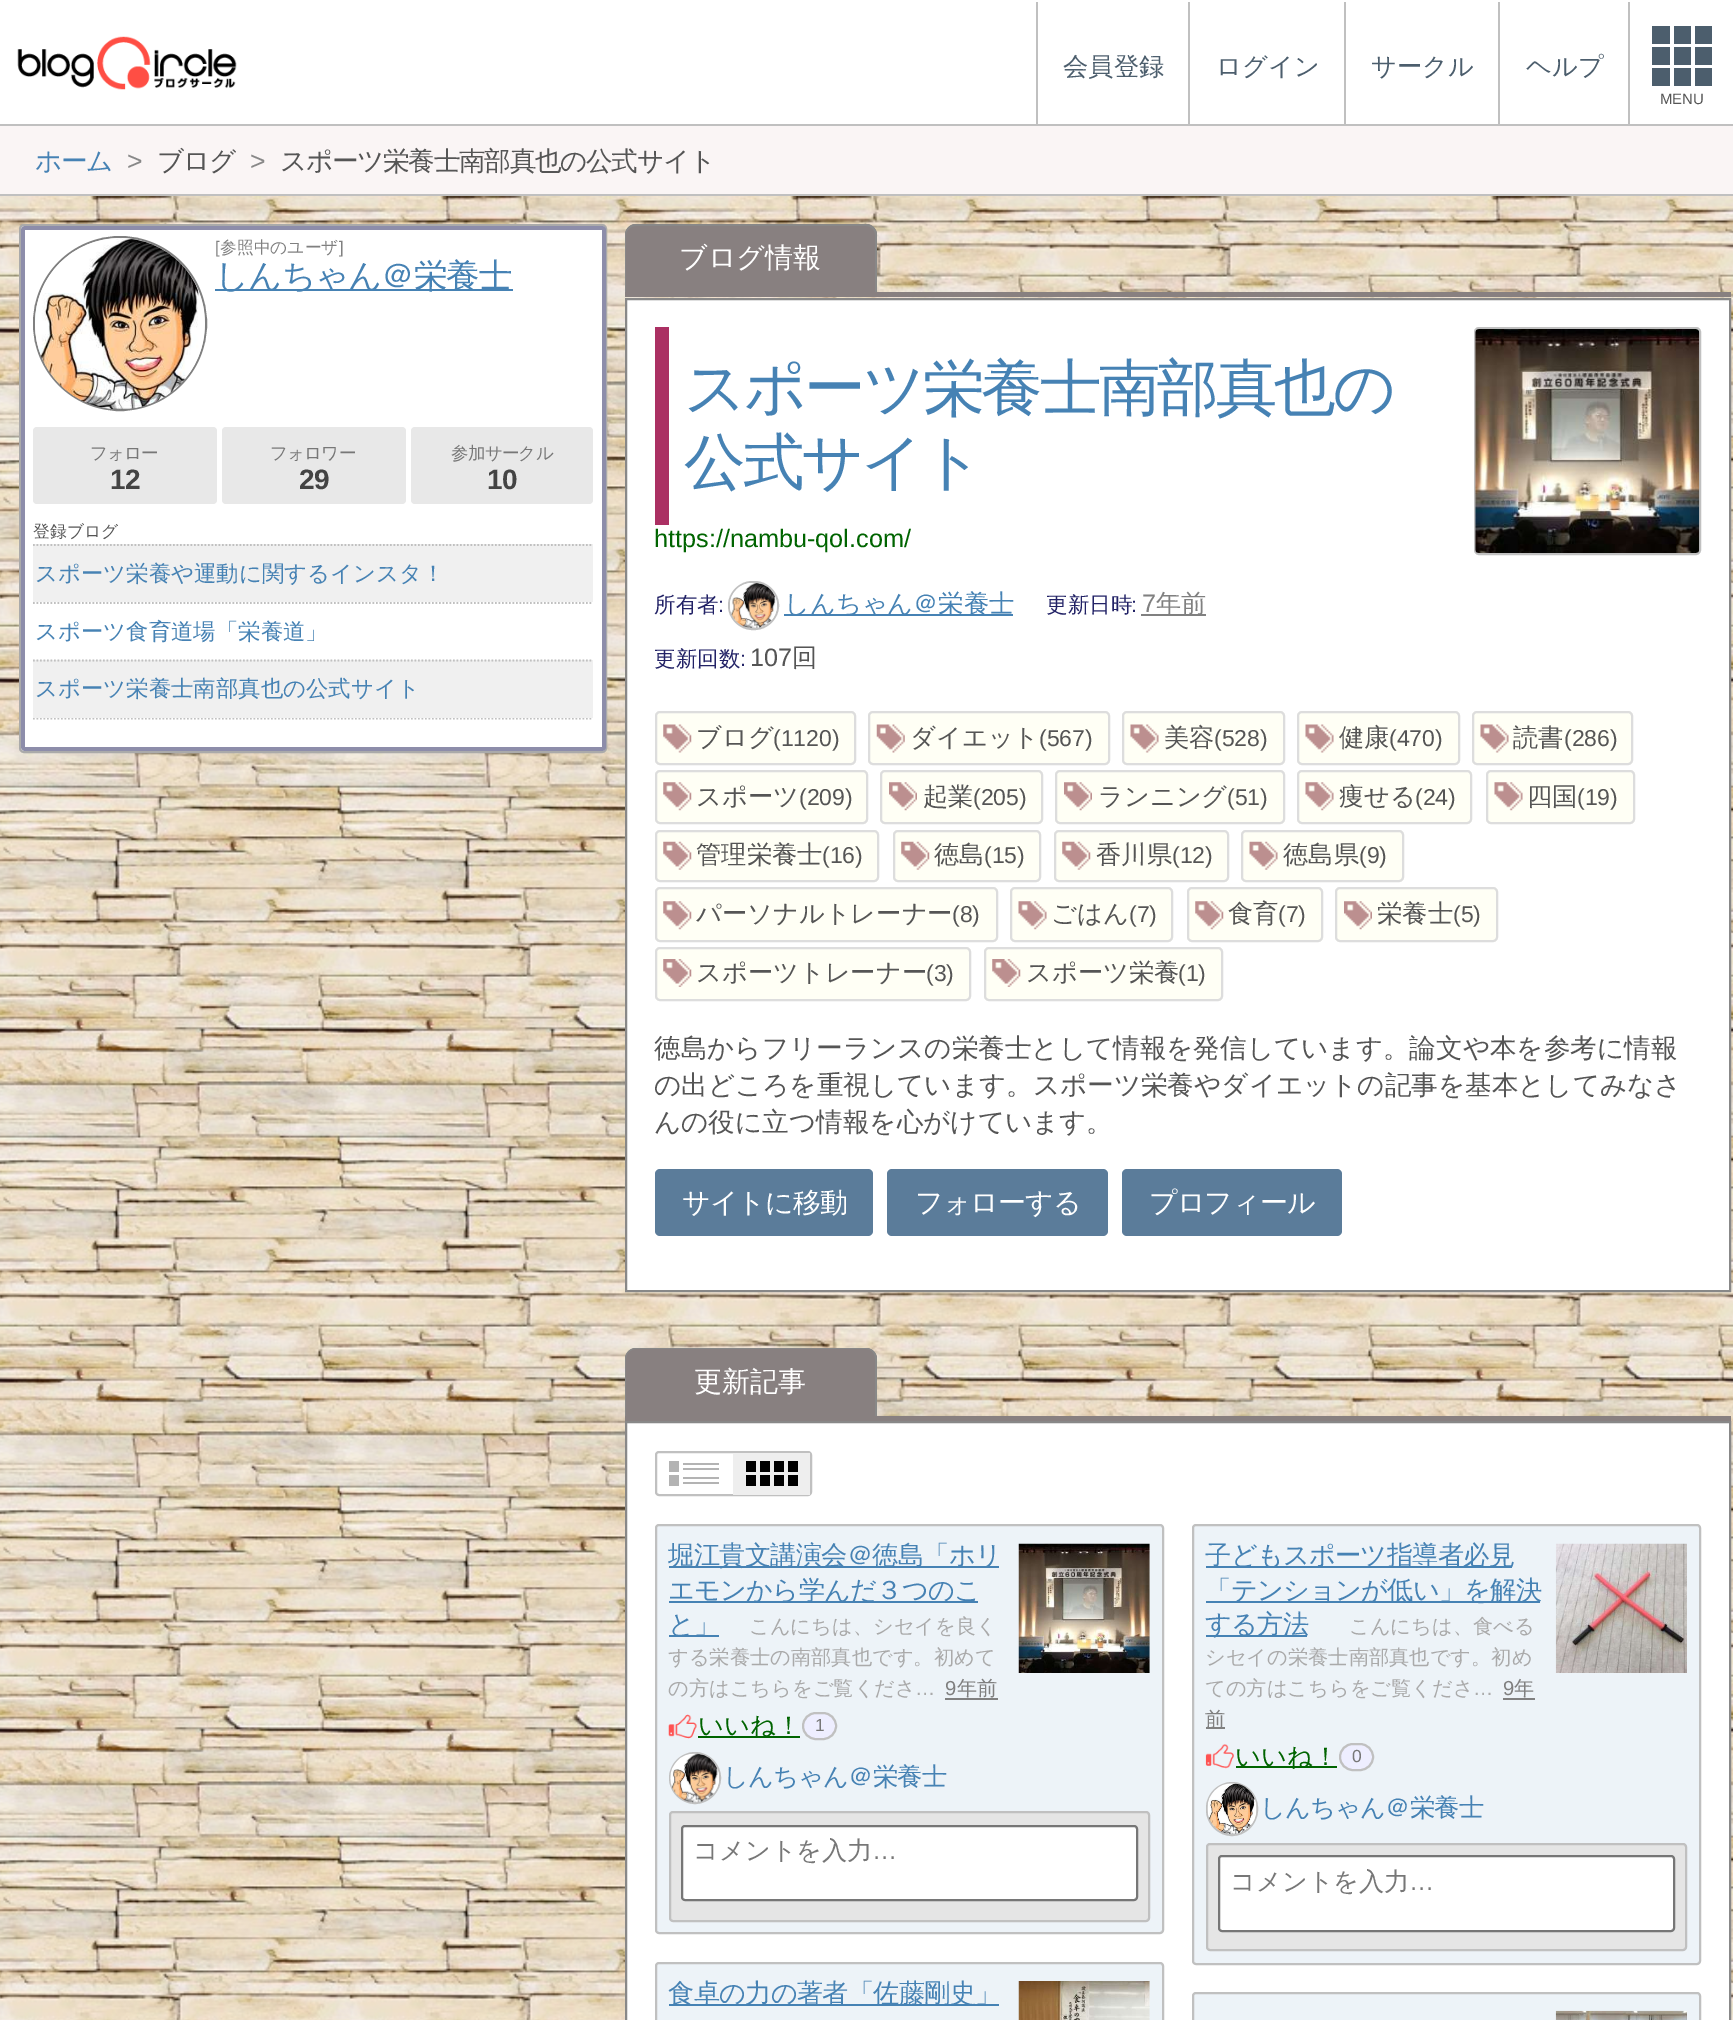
%!PS-Adobe-3.0
%%BoundingBox: 0 0 1733 2020
%%LanguageLevel: 3
%%Pages: 1
%%EndComments
%%BeginProlog
/rrect { 5 dict begin { /r /h /w /y /x } { exch def } forall
  x r add y moveto x w add y 2 copy h add r arct x w add y h add x 1 index r arct
  x y h add x y r arct x y 2 copy exch w add exch r arct closepath end } def
/drawimage { 5 dict begin { /h /w /y /x /name } { exch def } forall
  gsave x y translate w h scale
  w h 8 [w 0 0 h 0 0] name (r) file false 3 colorimage grestore end } def
%%EndProlog
%%BeginSetup
<< /PageSize [1733 2020] >> setpagedevice
%%EndSetup
%%Page: 1 1
0 2020 translate 1 -1 scale
4 setmiterlimit
1 setgray
0 0 1733 2020 rectfill
(images/1.raw) 0 196 1733 1824 drawimage
0.753 setgray
0 124 1733 2 rectfill
(images/2.raw) 17 36 220 54 drawimage
1036 2 2 122 rectfill
1188 2 2 122 rectfill
1344 2 2 122 rectfill
1498 2 2 122 rectfill
1628 2 2 122 rectfill
0.298 0.369 0.427 setrgbcolor
1652 26 60 18 rectfill
1 setgray
1691 26 4 18 rectfill
1670 26 4 18 rectfill
0.298 0.369 0.427 setrgbcolor
1652 47 60 18 rectfill
1 setgray
1691 47 4 18 rectfill
1670 47 4 18 rectfill
0.298 0.369 0.427 setrgbcolor
1652 68 60 18 rectfill
1 setgray
1691 68 4 18 rectfill
1670 68 4 18 rectfill
0.98 0.961 0.961 setrgbcolor
0 126 1733 68 rectfill
0.753 setgray
0 194 1733 2 rectfill
1 setgray
20 225 586 527 4 rrect gsave fill grestore
0.667 setgray
2 setlinewidth
stroke
0.553 0.553 0.667 setrgbcolor
newpath 25 226 moveto 23 226 21 228 21 230 curveto 21 747 lineto 21 749 23 751 25 751 curveto 602 751 lineto 604 751 606 749 606 747 curveto 606 230 lineto 606 228 604 226 602 226 curveto closepath 25 230 moveto 25 747 lineto 602 747 lineto 602 230 lineto closepath eofill
0.502 setgray
34 237 172 173 86 rrect stroke
(images/3.raw) 35 238 170 172 drawimage
0.275 0.51 0.706 setrgbcolor
215 289 298 2 rectfill
0.91 setgray
33 427 184 77 4 rrect fill
222 427 184 77 4 rrect fill
411 427 182 77 4 rrect fill
0.753 setgray
1.8 setlinewidth
[1.75 1.75] 0 setdash
newpath 33 718.5 moveto 593 718.5 lineto stroke
0.941 setgray
33 544 560 58 rectfill
0.753 setgray
newpath 33 545 moveto 593 545 lineto stroke
newpath 33 603 moveto 593 603 lineto stroke
0.941 setgray
33 660 560 58 rectfill
0.753 setgray
newpath 33 660.5 moveto 593 660.5 lineto stroke
0.533 0.502 0.502 setrgbcolor
625 292 1106 5 rectfill
newpath 636 224 moveto 866 224 lineto 872 224 877 229 877 235 curveto 877 292 lineto 625 292 lineto 625 235 lineto 625 229 630 224 636 224 curveto closepath fill
0.533 setgray
newpath 636 224 moveto 866 224 lineto 872 224 877 229 877 235 curveto 877 292 lineto 625 292 lineto 625 235 lineto 625 229 630 224 636 224 curveto closepath 636 226 moveto 866 226 lineto 871 226 875 230 875 235 curveto 875 292 lineto 626 292 lineto 626 235 lineto 626 230 631 226 636 226 curveto closepath eofill
1 setgray
newpath 626 299 moveto 1730 299 lineto 1730 1291 lineto 626 1291 lineto closepath gsave fill grestore
0.533 setgray
2 setlinewidth
[] 0 setdash
stroke
0.671 0.188 0.388 setrgbcolor
655 327 14 198 rectfill
0.753 setgray
1475 328 225 226 4 rrect stroke
(images/4.raw) 1475 329 225 224 drawimage
729 582 49 47 23.5 rrect stroke
(images/5.raw) 730 583 47 45 drawimage
0.275 0.51 0.706 setrgbcolor
784 614 229 2 rectfill
0.502 setgray
1141 614 65 2 rectfill
1 1 0.961 setrgbcolor
655 711 201 54 5 rrect fill
(images/6.raw) 663 724 29 29 drawimage
0.867 setgray
656 712 199 52 4 rrect stroke
1 1 0.961 setrgbcolor
868 711 242 54 5 rrect fill
(images/7.raw) 876 724 29 29 drawimage
0.867 setgray
869 712 240 52 4 rrect stroke
1 1 0.961 setrgbcolor
1122 711 163 54 5 rrect fill
(images/8.raw) 1130 724 29 29 drawimage
0.867 setgray
1123 712 161 52 4 rrect stroke
1 1 0.961 setrgbcolor
1297 711 163 54 5 rrect fill
(images/9.raw) 1305 724 29 29 drawimage
0.867 setgray
1298 712 161 52 4 rrect stroke
1 1 0.961 setrgbcolor
1472 711 161 54 5 rrect fill
(images/8.raw) 1480 724 29 29 drawimage
0.867 setgray
1473 712 159 52 4 rrect stroke
1 1 0.961 setrgbcolor
655 770 213 54 5 rrect fill
(images/10.raw) 663 782 29 29 drawimage
0.867 setgray
656 771 211 52 4 rrect stroke
1 1 0.961 setrgbcolor
880 770 163 54 5 rrect fill
(images/11.raw) 889 782 28 29 drawimage
0.867 setgray
881 771 161 52 4 rrect stroke
1 1 0.961 setrgbcolor
1055 770 230 54 5 rrect fill
(images/11.raw) 1064 782 28 29 drawimage
0.867 setgray
1056 771 228 52 4 rrect stroke
1 1 0.961 setrgbcolor
1297 770 175 54 5 rrect fill
(images/12.raw) 1305 782 29 29 drawimage
0.867 setgray
1298 771 173 52 4 rrect stroke
1 1 0.961 setrgbcolor
1486 770 149 54 5 rrect fill
(images/13.raw) 1494 782 29 29 drawimage
0.867 setgray
1487 771 147 52 4 rrect stroke
1 1 0.961 setrgbcolor
655 830 224 52 5 rrect fill
(images/14.raw) 663 841 29 29 drawimage
0.867 setgray
656 831 222 50 4 rrect stroke
1 1 0.961 setrgbcolor
893 830 148 52 5 rrect fill
(images/14.raw) 901 841 29 29 drawimage
0.867 setgray
894 831 146 50 4 rrect stroke
1 1 0.961 setrgbcolor
1054 830 175 52 5 rrect fill
(images/14.raw) 1062 841 29 29 drawimage
0.867 setgray
1055 831 173 50 4 rrect stroke
1 1 0.961 setrgbcolor
1241 830 163 52 5 rrect fill
(images/15.raw) 1249 841 29 29 drawimage
0.867 setgray
1242 831 161 50 4 rrect stroke
1 1 0.961 setrgbcolor
655 887 343 55 5 rrect fill
(images/10.raw) 663 901 29 29 drawimage
0.867 setgray
656 888 341 53 4 rrect stroke
1 1 0.961 setrgbcolor
1010 887 163 55 5 rrect fill
(images/16.raw) 1018 901 29 29 drawimage
0.867 setgray
1011 888 161 53 4 rrect stroke
1 1 0.961 setrgbcolor
1187 887 136 55 5 rrect fill
(images/10.raw) 1195 901 29 29 drawimage
0.867 setgray
1188 888 134 53 4 rrect stroke
1 1 0.961 setrgbcolor
1335 887 163 55 5 rrect fill
(images/11.raw) 1344 901 28 29 drawimage
0.867 setgray
1336 888 161 53 4 rrect stroke
1 1 0.961 setrgbcolor
655 947 316 54 5 rrect fill
(images/17.raw) 663 959 29 28 drawimage
0.867 setgray
656 948 314 52 4 rrect stroke
1 1 0.961 setrgbcolor
984 947 239 54 5 rrect fill
(images/18.raw) 992 959 29 28 drawimage
0.867 setgray
985 948 237 52 4 rrect stroke
0.357 0.486 0.604 setrgbcolor
655 1169 218 67 5 rrect fill
887 1169 221 67 5 rrect fill
1122 1169 220 67 5 rrect fill
0.533 0.502 0.502 setrgbcolor
625 1416 1106 5 rectfill
newpath 636 1348 moveto 866 1348 lineto 872 1348 877 1353 877 1359 curveto 877 1416 lineto 625 1416 lineto 625 1359 lineto 625 1353 630 1348 636 1348 curveto closepath fill
0.533 setgray
newpath 636 1348 moveto 866 1348 lineto 872 1348 877 1353 877 1359 curveto 877 1416 lineto 625 1416 lineto 625 1359 lineto 625 1353 630 1348 636 1348 curveto closepath 636 1349 moveto 866 1349 lineto 871 1349 875 1353 875 1359 curveto 875 1416 lineto 626 1416 lineto 626 1359 lineto 626 1353 631 1349 636 1349 curveto closepath eofill
1 setgray
newpath 626 1422 moveto 1730 1422 lineto 1730 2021 lineto 626 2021 lineto closepath gsave fill grestore
0.533 setgray
stroke
0.753 setgray
656 1452 155 43 3 rrect stroke
0.702 setgray
669 1461 10 11 rectfill
683 1463 36 2 rectfill
683 1468 36 2 rectfill
669 1475 10 11 rectfill
683 1477 36 2 rectfill
683 1482 36 2 rectfill
0.933 setgray
733 1453 77 42 rectfill
0 setgray
746 1461 10 11 rectfill
760 1461 10 11 rectfill
774 1461 10 11 rectfill
788 1461 10 11 rectfill
746 1475 10 11 rectfill
760 1475 10 11 rectfill
774 1475 10 11 rectfill
788 1475 10 11 rectfill
0.929 0.953 0.973 setrgbcolor
656 1525 507 408 3 rrect gsave fill grestore
0.753 setgray
stroke
0.275 0.51 0.706 setrgbcolor
669 1566 330 2 rectfill
669 1601 309 2 rectfill
669 1635 50 2 rectfill
0.502 setgray
945 1698 53 2 rectfill
(images/19.raw) 668 1714 29 25 drawimage
0 0.392 0 setrgbcolor
698 1736 102 2 rectfill
0.933 0.933 1 setrgbcolor
803 1713 33 26 13 rrect gsave fill grestore
0.753 setgray
stroke
newpath 695 1778 25 0 360 arc closepath stroke
(images/20.raw) 670 1753 49 50 drawimage
(images/21.raw) 1018 1543 132 130 drawimage
0.898 setgray
670 1812 479 109 3 rrect gsave fill grestore
0.753 setgray
stroke
1 setgray
682 1826 455 74 3 rrect gsave fill grestore
0.463 setgray
stroke
0.929 0.953 0.973 setrgbcolor
1193 1525 507 439 3 rrect gsave fill grestore
0.753 setgray
stroke
0.275 0.51 0.706 setrgbcolor
1206 1566 306 2 rectfill
1206 1601 334 2 rectfill
1206 1635 101 2 rectfill
0.502 setgray
1503 1698 32 2 rectfill
1206 1727 19 2 rectfill
(images/22.raw) 1205 1744 29 25 drawimage
0 0.392 0 setrgbcolor
1236 1766 101 2 rectfill
0.933 0.933 1 setrgbcolor
1340 1744 33 26 13 rrect gsave fill grestore
0.753 setgray
stroke
1207 1783 50 52 25 rrect stroke
(images/23.raw) 1207 1783 50 51 drawimage
(images/24.raw) 1555 1543 132 130 drawimage
0.898 setgray
1207 1844 479 106 3 rrect gsave fill grestore
0.753 setgray
stroke
1 setgray
1219 1856 455 75 3 rrect gsave fill grestore
0.463 setgray
stroke
0.929 0.953 0.973 setrgbcolor
656 1963 507 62 3 rrect gsave fill grestore
0.753 setgray
stroke
0.275 0.51 0.706 setrgbcolor
669 2004 330 2 rectfill
(images/25.raw) 1018 1981 132 39 drawimage
0.929 0.953 0.973 setrgbcolor
1193 1993 507 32 3 rrect gsave fill grestore
0.753 setgray
stroke
(images/26.raw) 1555 2010 132 10 drawimage
/WenQuanYiZenHei-Medium [25.25 0 0 -25.25 0 0] selectfont
0.298 0.369 0.427 setrgbcolor
1063 75 moveto (会員登録) show
1216 75 moveto (ログイン) show
1371 75 moveto (サークル) show
1526 75 moveto (ヘルプ) show
/LiberationSans-Regular [15 0 0 -15 0 0] selectfont
0.333 setgray
1660 104 moveto (MENU) show
/WenQuanYiZenHei-Medium [26.6 0 0 -26.6 0 0] selectfont
0.275 0.51 0.706 setrgbcolor
35 170 moveto -1.3 0 (ホーム) ashow
/LiberationSans-Regular [26.6 0 0 -26.6 0 0] selectfont
0.533 setgray
127 170 moveto -1.3 0 (>) ashow
/WenQuanYiZenHei-Medium [26.6 0 0 -26.6 0 0] selectfont
0.333 setgray
157 170 moveto -1.3 0 (ブログ) ashow
/LiberationSans-Regular [26.6 0 0 -26.6 0 0] selectfont
0.533 setgray
250 170 moveto -1.3 0 (>) ashow
/WenQuanYiZenHei-Medium [26.6 0 0 -26.6 0 0] selectfont
0.333 setgray
280 170 moveto -1.3 0 (スポーツ栄養士南部真也の公式サイト) ashow
/LiberationSans-Regular [16.75 0 0 -16.75 0 0] selectfont
0.502 setgray
215 253 moveto ([) show
/WenQuanYiZenHei-Medium [16.75 0 0 -16.75 0 0] selectfont
220 253 moveto (参照中のユーザ) show
/LiberationSans-Regular [16.75 0 0 -16.75 0 0] selectfont
339 253 moveto (]) show
/WenQuanYiZenHei-Medium [33.5 0 0 -33.5 0 0] selectfont
0.275 0.51 0.706 setrgbcolor
215 287 moveto -1 0 (しんちゃん＠栄養士) ashow
/WenQuanYiZenHei-Medium [17.5 0 0 -17.5 0 0] selectfont
0.467 setgray
90 459 moveto -0.75 0 (フォロー) ashow
/LiberationSans-Bold [28 0 0 -28 0 0] selectfont
0.267 setgray
110 489 moveto -0.75 0 (12) ashow
/WenQuanYiZenHei-Medium [17.5 0 0 -17.5 0 0] selectfont
0.467 setgray
270 459 moveto -0.75 0 (フォロワー) ashow
/LiberationSans-Bold [28 0 0 -28 0 0] selectfont
0.267 setgray
299 489 moveto -0.75 0 (29) ashow
/WenQuanYiZenHei-Medium [17.5 0 0 -17.5 0 0] selectfont
0.467 setgray
451 459 moveto -0.75 0 (参加サークル) ashow
/LiberationSans-Bold [28 0 0 -28 0 0] selectfont
0.267 setgray
487 489 moveto -0.75 0 (10) ashow
/WenQuanYiZenHei-Medium [16.75 0 0 -16.75 0 0] selectfont
0.333 setgray
33 537 moveto (登録ブログ) show
/WenQuanYiZenHei-Medium [22.4 0 0 -22.4 0 0] selectfont
0.275 0.51 0.706 setrgbcolor
35 581 moveto (スポーツ栄養や運動に関するインスタ！) show
35 639 moveto (スポーツ食育道場「栄養道」) show
35 696 moveto (スポーツ栄養士南部真也の公式サイト) show
/WenQuanYiZenHei-Medium [28 0 0 -28 0 0] selectfont
1 setgray
679 267 moveto (ブログ情報) show
/WenQuanYiZenHei-Medium [61.6 0 0 -61.6 0 0] selectfont
0.275 0.51 0.706 setrgbcolor
684 409 moveto -3 0 (スポーツ栄養士南部真也の) ashow
684 483 moveto -3 0 (公式サイト) ashow
/LiberationSans-Regular [25.25 0 0 -25.25 0 0] selectfont
0 0.392 0 setrgbcolor
654 547 moveto (https://nambu-qol.com/) show
/WenQuanYiZenHei-Medium [21.5 0 0 -21.5 0 0] selectfont
0.133 0.133 0.4 setrgbcolor
654 612 moveto (所有者) show
/LiberationSans-Regular [21.5 0 0 -21.5 0 0] selectfont
718 612 moveto (:) show
/WenQuanYiZenHei-Medium [25.25 0 0 -25.25 0 0] selectfont
0.275 0.51 0.706 setrgbcolor
784 612 moveto (しんちゃん＠栄養士) show
/WenQuanYiZenHei-Medium [21.5 0 0 -21.5 0 0] selectfont
0.133 0.133 0.4 setrgbcolor
1046 612 moveto (更新日時) show
/LiberationSans-Regular [21.5 0 0 -21.5 0 0] selectfont
1131 612 moveto (:) show
/LiberationSans-Regular [25.25 0 0 -25.25 0 0] selectfont
0.502 setgray
1142 612 moveto (7) show
/WenQuanYiZenHei-Medium [25.25 0 0 -25.25 0 0] selectfont
1156 612 moveto (年前) show
/WenQuanYiZenHei-Medium [21.5 0 0 -21.5 0 0] selectfont
0.133 0.133 0.4 setrgbcolor
654 666 moveto (更新回数) show
/LiberationSans-Regular [21.5 0 0 -21.5 0 0] selectfont
740 666 moveto (:) show
/LiberationSans-Regular [25.25 0 0 -25.25 0 0] selectfont
0.333 setgray
750 666 moveto (107) show
/WenQuanYiZenHei-Medium [25.25 0 0 -25.25 0 0] selectfont
792 666 moveto (回) show
696 746 moveto (ブログ) show
/LiberationSans-Regular [23 0 0 -23 0 0] selectfont
773 746 moveto (\(1120\)) show
/WenQuanYiZenHei-Medium [25.25 0 0 -25.25 0 0] selectfont
910 746 moveto (ダイエット) show
/LiberationSans-Regular [23 0 0 -23 0 0] selectfont
1039 746 moveto (\(567\)) show
/WenQuanYiZenHei-Medium [25.25 0 0 -25.25 0 0] selectfont
1164 746 moveto (美容) show
/LiberationSans-Regular [23 0 0 -23 0 0] selectfont
1214 746 moveto (\(528\)) show
/WenQuanYiZenHei-Medium [25.25 0 0 -25.25 0 0] selectfont
1339 746 moveto (健康) show
/LiberationSans-Regular [23 0 0 -23 0 0] selectfont
1389 746 moveto (\(470\)) show
/WenQuanYiZenHei-Medium [25.25 0 0 -25.25 0 0] selectfont
1513 746 moveto (読書) show
/LiberationSans-Regular [23 0 0 -23 0 0] selectfont
1564 746 moveto (\(286\)) show
/WenQuanYiZenHei-Medium [25.25 0 0 -25.25 0 0] selectfont
696 805 moveto (スポーツ) show
/LiberationSans-Regular [23 0 0 -23 0 0] selectfont
799 805 moveto (\(209\)) show
/WenQuanYiZenHei-Medium [25.25 0 0 -25.25 0 0] selectfont
923 805 moveto (起業) show
/LiberationSans-Regular [23 0 0 -23 0 0] selectfont
973 805 moveto (\(205\)) show
/WenQuanYiZenHei-Medium [25.25 0 0 -25.25 0 0] selectfont
1098 805 moveto (ランニング) show
/LiberationSans-Regular [23 0 0 -23 0 0] selectfont
1227 805 moveto (\(51\)) show
/WenQuanYiZenHei-Medium [25.25 0 0 -25.25 0 0] selectfont
1339 805 moveto (痩せる) show
/LiberationSans-Regular [23 0 0 -23 0 0] selectfont
1415 805 moveto (\(24\)) show
/WenQuanYiZenHei-Medium [25.25 0 0 -25.25 0 0] selectfont
1527 805 moveto (四国) show
/LiberationSans-Regular [23 0 0 -23 0 0] selectfont
1577 805 moveto (\(19\)) show
/WenQuanYiZenHei-Medium [25.25 0 0 -25.25 0 0] selectfont
696 863 moveto (管理栄養士) show
/LiberationSans-Regular [23 0 0 -23 0 0] selectfont
822 863 moveto (\(16\)) show
/WenQuanYiZenHei-Medium [25.25 0 0 -25.25 0 0] selectfont
934 863 moveto (徳島) show
/LiberationSans-Regular [23 0 0 -23 0 0] selectfont
984 863 moveto (\(15\)) show
/WenQuanYiZenHei-Medium [25.25 0 0 -25.25 0 0] selectfont
1096 863 moveto (香川県) show
/LiberationSans-Regular [23 0 0 -23 0 0] selectfont
1172 863 moveto (\(12\)) show
/WenQuanYiZenHei-Medium [25.25 0 0 -25.25 0 0] selectfont
1283 863 moveto (徳島県) show
/LiberationSans-Regular [23 0 0 -23 0 0] selectfont
1359 863 moveto (\(9\)) show
/WenQuanYiZenHei-Medium [25.25 0 0 -25.25 0 0] selectfont
696 922 moveto (パーソナルトレーナー) show
/LiberationSans-Regular [23 0 0 -23 0 0] selectfont
952 922 moveto (\(8\)) show
/WenQuanYiZenHei-Medium [25.25 0 0 -25.25 0 0] selectfont
1051 922 moveto (ごはん) show
/LiberationSans-Regular [23 0 0 -23 0 0] selectfont
1129 922 moveto (\(7\)) show
/WenQuanYiZenHei-Medium [25.25 0 0 -25.25 0 0] selectfont
1228 922 moveto (食育) show
/LiberationSans-Regular [23 0 0 -23 0 0] selectfont
1278 922 moveto (\(7\)) show
/WenQuanYiZenHei-Medium [25.25 0 0 -25.25 0 0] selectfont
1377 922 moveto (栄養士) show
/LiberationSans-Regular [23 0 0 -23 0 0] selectfont
1453 922 moveto (\(5\)) show
/WenQuanYiZenHei-Medium [25.25 0 0 -25.25 0 0] selectfont
696 981 moveto (スポーツトレーナー) show
/LiberationSans-Regular [23 0 0 -23 0 0] selectfont
926 981 moveto (\(3\)) show
/WenQuanYiZenHei-Medium [25.25 0 0 -25.25 0 0] selectfont
1026 981 moveto (スポーツ栄養) show
/LiberationSans-Regular [23 0 0 -23 0 0] selectfont
1178 981 moveto (\(1\)) show
/WenQuanYiZenHei-Medium [26.6 0 0 -26.6 0 0] selectfont
654 1057 moveto (徳島からフリーランスの栄養士として情報を発信しています。論文や本を参考に情報) show
654 1094 moveto (の出どころを重視しています。スポーツ栄養やダイエットの記事を基本としてみなさ) show
654 1131 moveto (んの役に立つ情報を心がけています。) show
/WenQuanYiZenHei-Medium [28 0 0 -28 0 0] selectfont
1 setgray
682 1212 moveto -1 0 (サイトに移動) ashow
915 1212 moveto -1 0 (フォローする) ashow
1149 1212 moveto -1 0 (プロフィール) ashow
694 1391 moveto (更新記事) show
/WenQuanYiZenHei-Medium [26.25 0 0 -26.25 0 0] selectfont
0.275 0.51 0.706 setrgbcolor
668 1564 moveto -0.75 0 (堀江貴文講演会＠徳島「ホリ) ashow
668 1599 moveto -0.75 0 (エモンから学んだ３つのこ) ashow
668 1633 moveto -0.75 0 (と」) ashow
/WenQuanYiZenHei-Medium [20.25 0 0 -20.25 0 0] selectfont
0.667 setgray
749 1633 moveto (こんにちは、シセイを良く) show
668 1664 moveto (する栄養士の南部真也です。初めて) show
668 1695 moveto (の方はこちらをご覧くださ) show
/LiberationSans-Regular [20.25 0 0 -20.25 0 0] selectfont
915 1695 moveto (…) show
0.502 setgray
945 1695 moveto (9) show
/WenQuanYiZenHei-Medium [20.25 0 0 -20.25 0 0] selectfont
957 1695 moveto (年前) show
/WenQuanYiZenHei-Medium [25.25 0 0 -25.25 0 0] selectfont
0 0.392 0 setrgbcolor
698 1734 moveto (いいね！) show
/LiberationSans-Regular [17.5 0 0 -17.5 0 0] selectfont
0.467 setgray
815 1731 moveto (1) show
/WenQuanYiZenHei-Medium [25.25 0 0 -25.25 0 0] selectfont
0.275 0.51 0.706 setrgbcolor
723 1785 moveto -0.75 0 (しんちゃん＠栄養士) ashow
0.467 setgray
693 1859 moveto (コメントを入力) show
/LiberationSans-Regular [25.25 0 0 -25.25 0 0] selectfont
872 1859 moveto (…) show
/WenQuanYiZenHei-Medium [26.25 0 0 -26.25 0 0] selectfont
0.275 0.51 0.706 setrgbcolor
1205 1564 moveto -0.75 0 (子どもスポーツ指導者必見) ashow
1205 1599 moveto -0.75 0 (「テンションが低い」を解決) ashow
1205 1633 moveto -0.75 0 (する方法) ashow
/WenQuanYiZenHei-Medium [20.25 0 0 -20.25 0 0] selectfont
0.667 setgray
1349 1633 moveto (こんにちは、食べる) show
1205 1664 moveto (シセイの栄養士南部真也です。初め) show
1205 1695 moveto (ての方はこちらをご覧くださ) show
/LiberationSans-Regular [20.25 0 0 -20.25 0 0] selectfont
1473 1695 moveto (…) show
0.502 setgray
1503 1695 moveto (9) show
/WenQuanYiZenHei-Medium [20.25 0 0 -20.25 0 0] selectfont
1514 1695 moveto (年) show
1205 1726 moveto (前) show
/WenQuanYiZenHei-Medium [25.25 0 0 -25.25 0 0] selectfont
0 0.392 0 setrgbcolor
1235 1765 moveto (いいね！) show
/LiberationSans-Regular [17.5 0 0 -17.5 0 0] selectfont
0.467 setgray
1352 1762 moveto (0) show
/WenQuanYiZenHei-Medium [25.25 0 0 -25.25 0 0] selectfont
0.275 0.51 0.706 setrgbcolor
1260 1816 moveto -0.75 0 (しんちゃん＠栄養士) ashow
0.467 setgray
1230 1890 moveto (コメントを入力) show
/LiberationSans-Regular [25.25 0 0 -25.25 0 0] selectfont
1409 1890 moveto (…) show
/WenQuanYiZenHei-Medium [26.25 0 0 -26.25 0 0] selectfont
0.275 0.51 0.706 setrgbcolor
668 2002 moveto -0.75 0 (食卓の力の著者「佐藤剛史」) ashow
showpage
%%EOF
